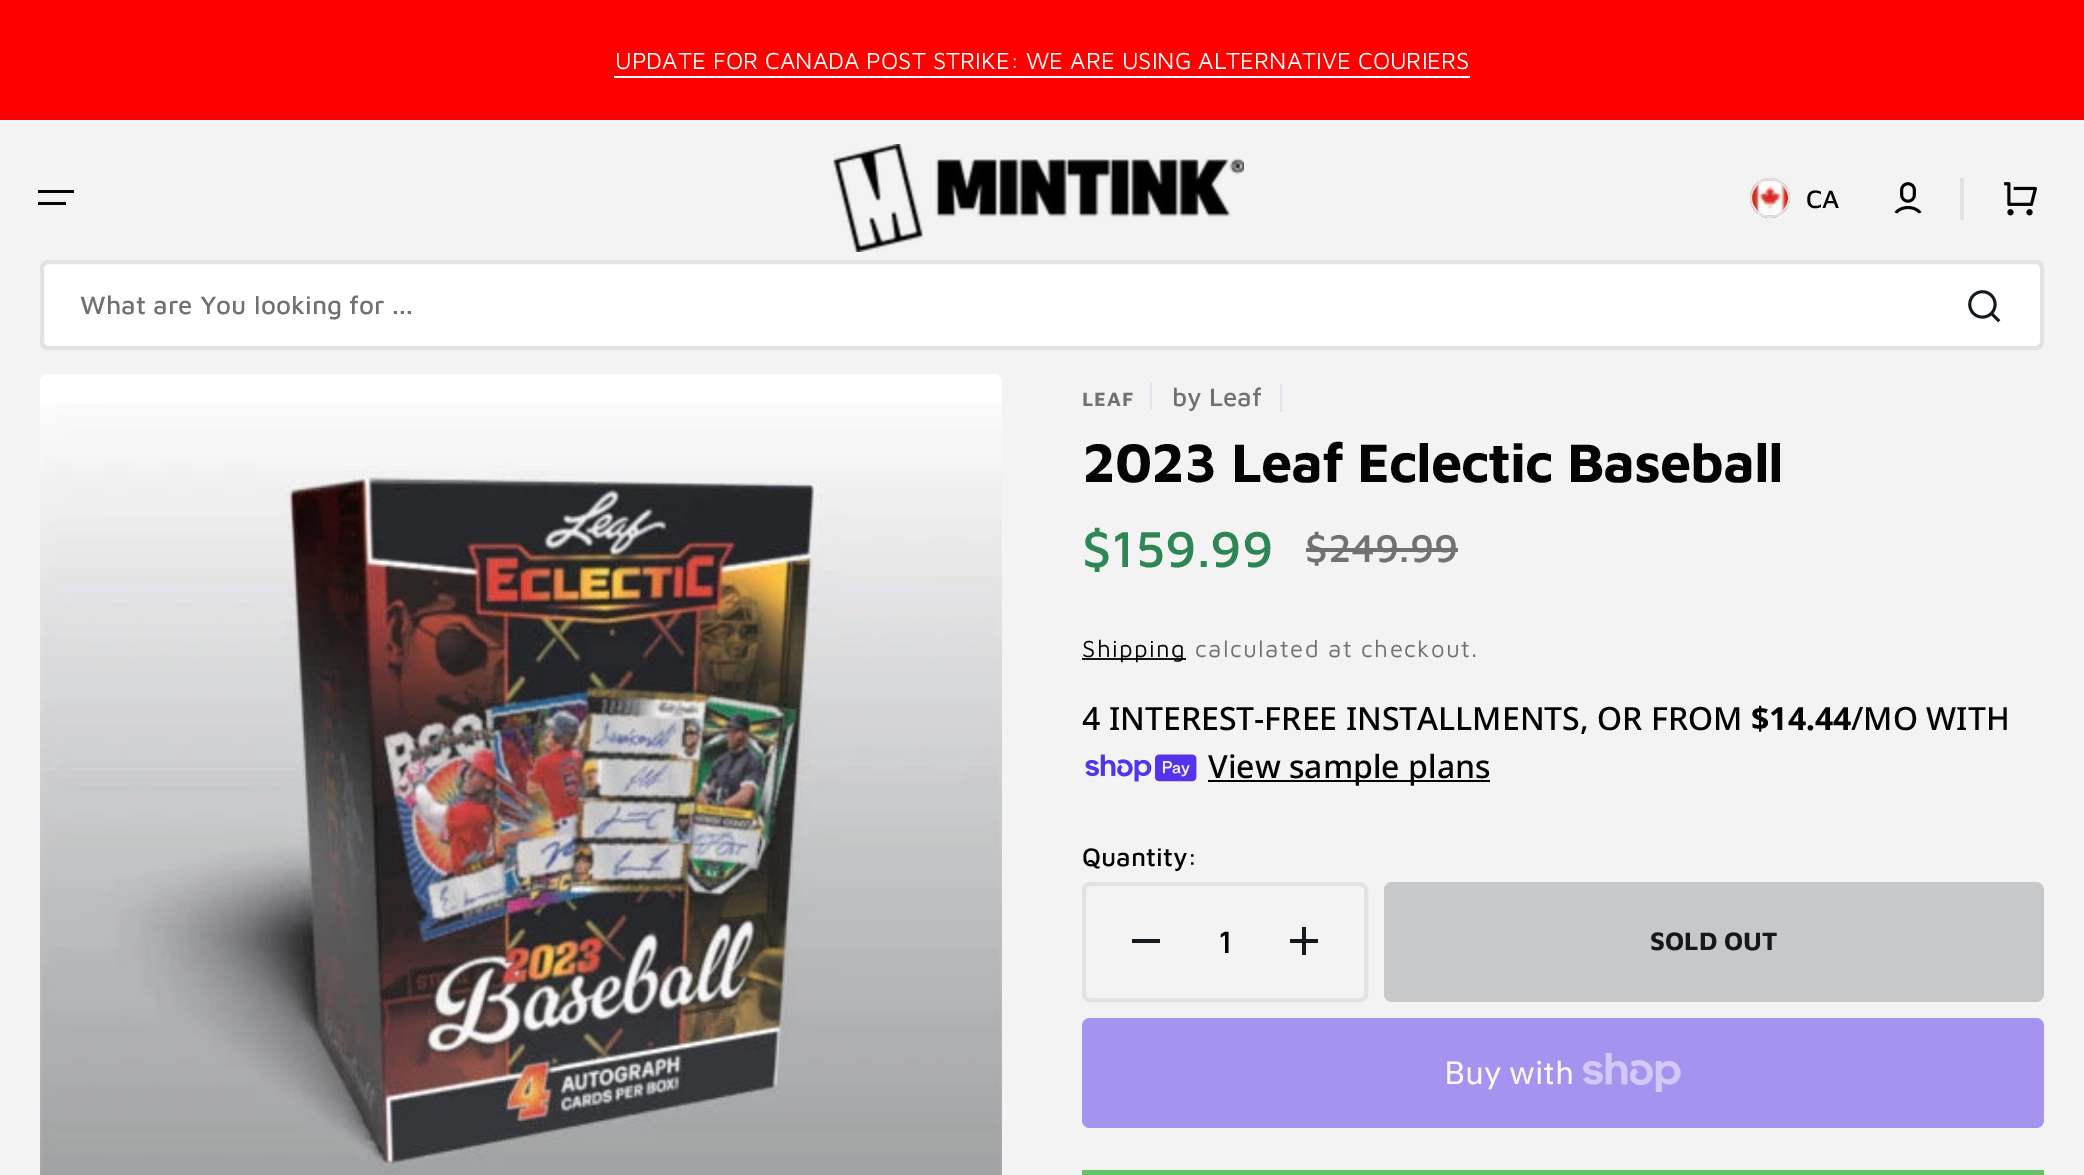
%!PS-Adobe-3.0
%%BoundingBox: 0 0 2084 1175
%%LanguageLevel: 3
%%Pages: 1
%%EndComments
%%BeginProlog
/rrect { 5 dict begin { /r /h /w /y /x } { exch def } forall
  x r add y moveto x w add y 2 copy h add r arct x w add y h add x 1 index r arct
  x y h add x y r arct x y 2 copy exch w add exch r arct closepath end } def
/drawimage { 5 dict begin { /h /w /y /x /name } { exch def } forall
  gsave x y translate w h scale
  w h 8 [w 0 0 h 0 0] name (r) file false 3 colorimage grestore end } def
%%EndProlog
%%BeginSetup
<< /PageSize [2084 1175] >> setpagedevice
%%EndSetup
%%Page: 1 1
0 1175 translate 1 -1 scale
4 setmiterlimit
0.957 0.953 0.953 setrgbcolor
0 0 2084 1175 rectfill
1 0 0 setrgbcolor
0 0 2084 120 rectfill
1 setgray
614 76 856 2 rectfill
0.016 setgray
38 190 36 3 rectfill
38 202 28 3 rectfill
(images/1.raw) 833 144 411 108 drawimage
(images/2.raw) 1750 178 40 40 drawimage
0.89 0.882 0.882 setrgbcolor
2 setlinewidth
newpath 1770 198 19 0 360 arc closepath stroke
(images/3.raw) 1894 182 28 32 drawimage
1960 178 4 42 rectfill
(images/4.raw) 2004 182 33 34 drawimage
1 setgray
42 262 2000 86 6 rrect gsave fill grestore
0.89 0.882 0.882 setrgbcolor
4 setlinewidth
stroke
(images/5.raw) 1968 290 33 33 drawimage
1 setgray
40 374 962 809 8 rrect fill
(images/6.raw) 40 404 962 771 drawimage
0.878 0.89 0.933 setrgbcolor
1150 382 2 28 rectfill
1280 384 2 28 rectfill
0.443 setgray
1306 548 152 4 rectfill
0.078 0.098 0.125 setrgbcolor
1082 658 104 2 rectfill
(images/7.raw) 1085 754 112 28 drawimage
0.016 setgray
1208 780 282 2 rectfill
0.89 0.882 0.882 setrgbcolor
1084 884 282 116 6 rrect stroke
0.078 0.098 0.125 setrgbcolor
newpath 1144 939 moveto 1160 939 lineto 1160 943 lineto 1132 943 lineto 1132 939 lineto closepath fill
(images/8.raw) 1290 927 28 28 drawimage
0.78 0.784 0.788 setrgbcolor
1384 882 660 120 8 rrect fill
0.643 0.576 0.937 setrgbcolor
1082 1018 962 110 8 rrect fill
(images/9.raw) 1583 1053 98 39 drawimage
0.392 0.761 0.392 setrgbcolor
1082 1170 962 5 rectfill
/MavenPro-Regular [24 0 0 -24 0 0] selectfont
1 setgray
615 69 moveto (UPDATE FOR CANADA POST STRIKE: WE ARE USING ALTERNATIVE COURIERS) show
/MavenPro-Medium [26 0 0 -26 0 0] selectfont
0.016 setgray
1806 208 moveto (CA) show
0.443 setgray
80 314 moveto (What are You looking for ...) show
/MavenPro-Bold [20 0 0 -20 0 0] selectfont
1082 406 moveto 1 0 (LEAF) ashow
/MavenPro-Medium [26 0 0 -26 0 0] selectfont
1172 406 moveto (by Leaf) show
/MavenPro-Bold [56 0 0 -56 0 0] selectfont
0.016 setgray
1082 482 moveto -1.1 0 (2023 Leaf Eclectic Baseball) ashow
/MavenPro-Medium [52 0 0 -52 0 0] selectfont
0.176 0.525 0.325 setrgbcolor
1082 567 moveto ($159.99) show
/MavenPro-Medium [40 0 0 -40 0 0] selectfont
0.443 setgray
1305 562 moveto ($249.99) show
/MavenPro-Regular [24 0 0 -24 0 0] selectfont
0.016 setgray
1082 657 moveto 1.4 0 (Shipping) ashow
0.443 setgray
1195 657 moveto 1.4 0 (calculated at checkout.) ashow
/NotoSans-Medium [32 0 0 -32 0 0] selectfont
0.016 setgray
1082 730 moveto (4 INTEREST-FREE INSTALLMENTS, OR FROM) show
/NotoSans-Bold [32 0 0 -32 0 0] selectfont
1751 730 moveto ($14.44) show
/NotoSans-Medium [32 0 0 -32 0 0] selectfont
1851 730 moveto (/MO WITH) show
1208 778 moveto (View sample plans) show
/MavenPro-Medium [26 0 0 -26 0 0] selectfont
1082 866 moveto (Quantity:) show
/MavenPro-Medium [32 0 0 -32 0 0] selectfont
1218 953 moveto (1) show
/MavenPro-Bold [26 0 0 -26 0 0] selectfont
0.078 0.098 0.125 setrgbcolor
1650 950 moveto (SOLD OUT) show
/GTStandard-Regular [32 0 0 -32 0 0] selectfont
0.98 0.976 0.976 setrgbcolor
1444 1084 moveto (Buy with) show
showpage
%%EOF
